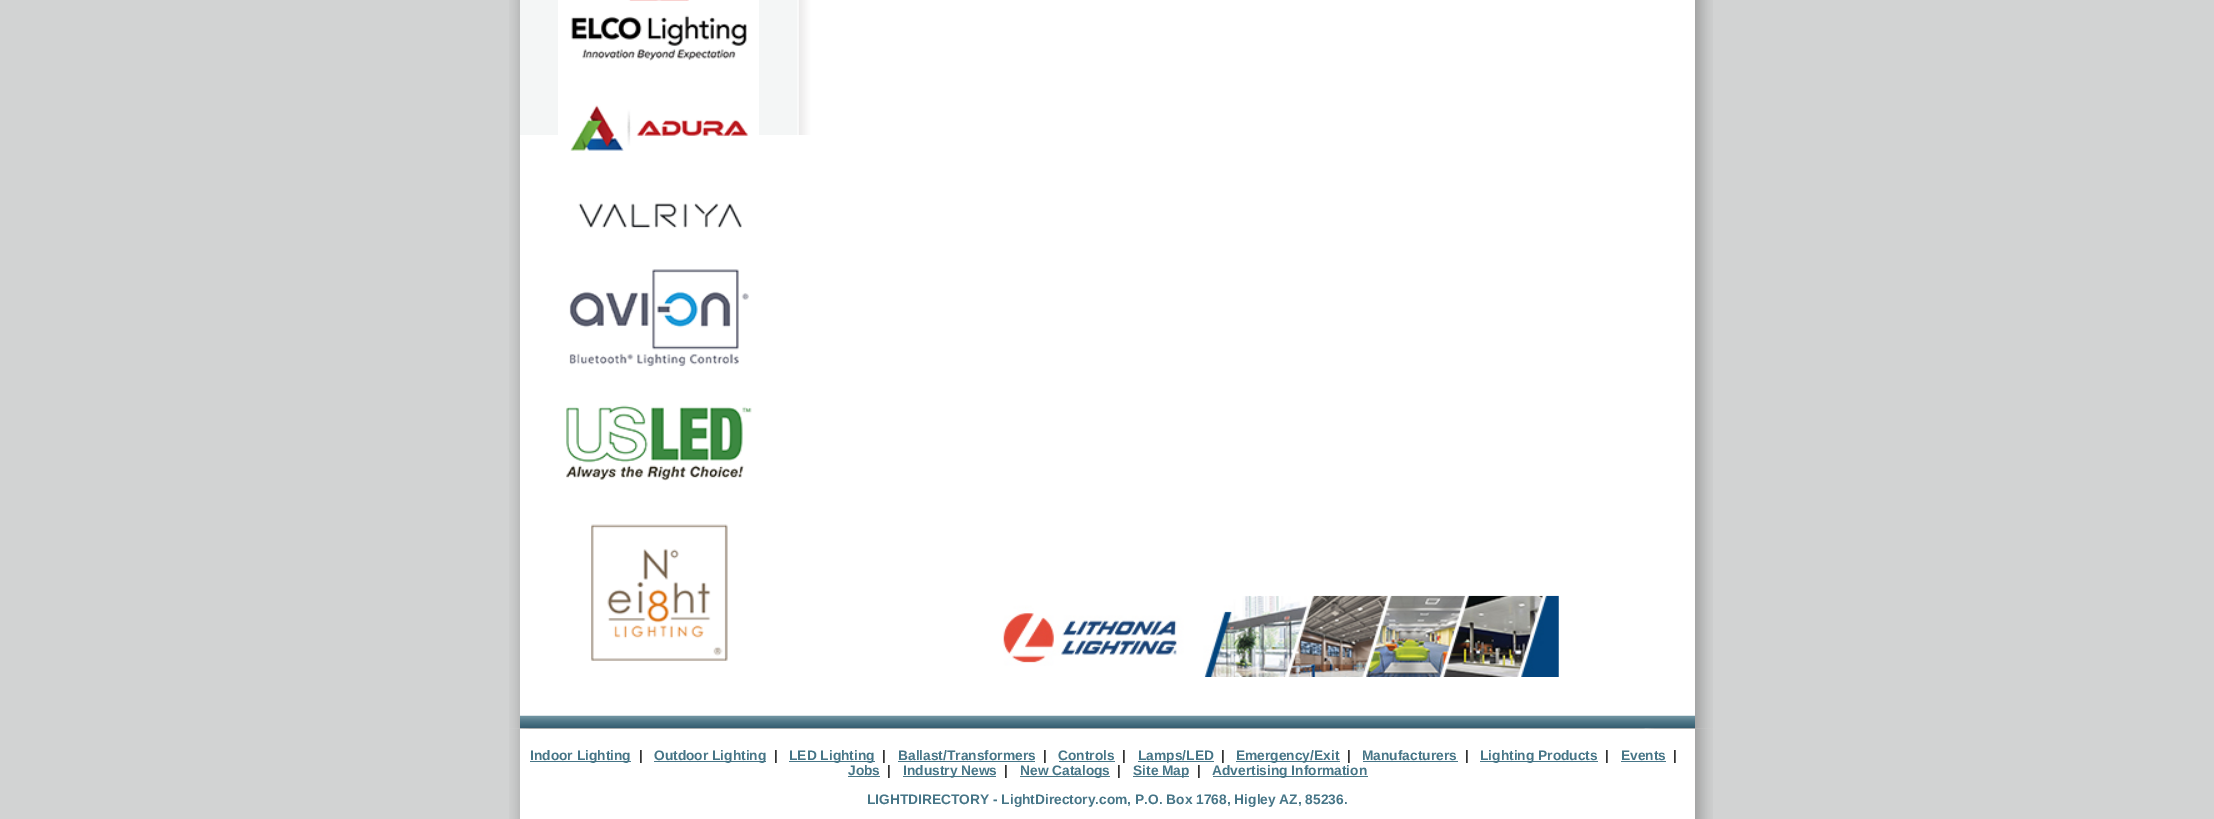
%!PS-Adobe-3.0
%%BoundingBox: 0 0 2214 819
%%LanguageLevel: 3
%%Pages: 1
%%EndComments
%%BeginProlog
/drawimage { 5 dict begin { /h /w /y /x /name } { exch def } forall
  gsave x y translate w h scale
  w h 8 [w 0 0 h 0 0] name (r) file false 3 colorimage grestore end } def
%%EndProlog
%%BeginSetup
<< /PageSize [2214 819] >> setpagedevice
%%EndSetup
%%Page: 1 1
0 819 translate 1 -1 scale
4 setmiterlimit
0.824 0.827 0.827 setrgbcolor
0 0 2214 819 rectfill
(images/1.raw) 509 0 11 729 drawimage
(images/2.raw) 520 0 291 135 drawimage
1 setgray
558 0 201 135 rectfill
(images/3.raw) 571 0 176 61 drawimage
520 135 1175 581 rectfill
(images/4.raw) 570 105 179 46 drawimage
(images/5.raw) 578 203 164 25 drawimage
(images/6.raw) 569 269 180 98 drawimage
(images/7.raw) 566 405 186 76 drawimage
(images/8.raw) 591 524 137 137 drawimage
811 0 884 135 rectfill
(images/9.raw) 1003 595 556 82 drawimage
(images/10.raw) 520 715 1175 14 drawimage
(images/11.raw) 1695 0 18 729 drawimage
(images/12.raw) 509 728 11 91 drawimage
(images/13.raw) 520 728 1175 1 drawimage
520 729 1175 90 rectfill
0.275 0.459 0.529 setrgbcolor
530 761 101 1 rectfill
654 761 112 1 rectfill
789 761 86 1 rectfill
898 761 137 1 rectfill
1059 761 56 1 rectfill
1138 761 76 1 rectfill
1236 761 104 1 rectfill
1363 761 95 1 rectfill
1480 761 118 1 rectfill
1621 761 45 1 rectfill
848 776 32 1 rectfill
903 776 93 1 rectfill
1020 776 90 1 rectfill
1133 776 56 1 rectfill
1213 776 155 1 rectfill
(images/14.raw) 1695 728 18 91 drawimage
/LiberationSans-Bold [13.75 0 0 -13.75 0 0] selectfont
530 760 moveto (Indoor Lighting) show
0.2 setgray
639 760 moveto (|) show
0.275 0.459 0.529 setrgbcolor
654 760 moveto (Outdoor Lighting) show
0.2 setgray
774 760 moveto (|) show
0.275 0.459 0.529 setrgbcolor
789 760 moveto (LED Lighting) show
0.2 setgray
882 760 moveto (|) show
0.275 0.459 0.529 setrgbcolor
898 760 moveto (Ballast/Transformers) show
0.2 setgray
1043 760 moveto (|) show
0.275 0.459 0.529 setrgbcolor
1058 760 moveto (Controls) show
0.2 setgray
1122 760 moveto (|) show
0.275 0.459 0.529 setrgbcolor
1138 760 moveto (Lamps/LED) show
0.2 setgray
1221 760 moveto (|) show
0.275 0.459 0.529 setrgbcolor
1236 760 moveto (Emergency/Exit) show
0.2 setgray
1347 760 moveto (|) show
0.275 0.459 0.529 setrgbcolor
1362 760 moveto (Manufacturers) show
0.2 setgray
1465 760 moveto (|) show
0.275 0.459 0.529 setrgbcolor
1480 760 moveto (Lighting Products) show
0.2 setgray
1605 760 moveto (|) show
0.275 0.459 0.529 setrgbcolor
1621 760 moveto (Events) show
0.2 setgray
1673 760 moveto (|) show
0.275 0.459 0.529 setrgbcolor
848 775 moveto (Jobs) show
0.2 setgray
887 775 moveto (|) show
0.275 0.459 0.529 setrgbcolor
903 775 moveto (Industry News) show
0.2 setgray
1004 775 moveto (|) show
0.275 0.459 0.529 setrgbcolor
1020 775 moveto (New Catalogs) show
0.2 setgray
1117 775 moveto (|) show
0.275 0.459 0.529 setrgbcolor
1133 775 moveto (Site Map) show
0.2 setgray
1197 775 moveto (|) show
0.275 0.459 0.529 setrgbcolor
1212 775 moveto (Advertising Information) show
867 804 moveto (LIGHTDIRECTORY - LightDirectory.com, P.O. Box 1768, Higley AZ, 85236.) show
showpage
%%EOF
